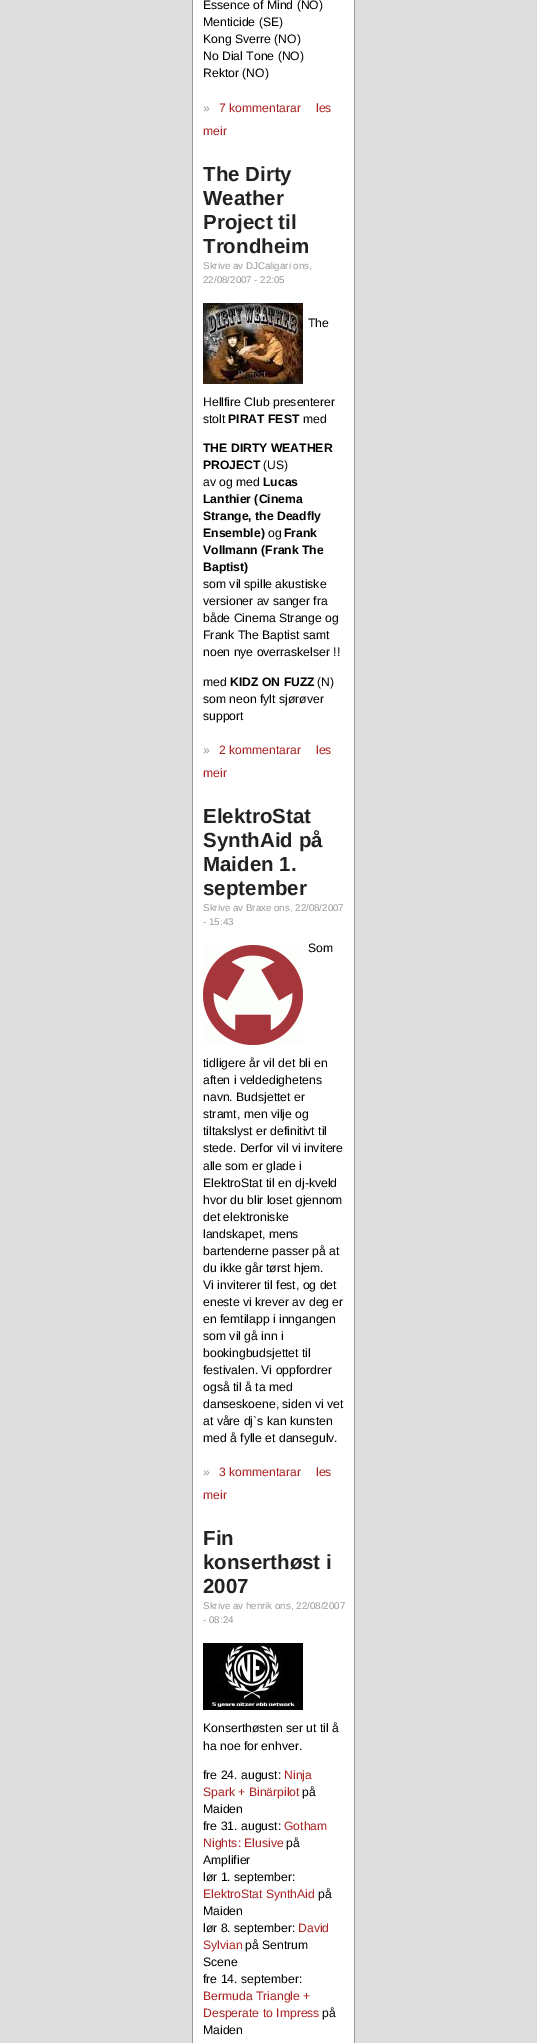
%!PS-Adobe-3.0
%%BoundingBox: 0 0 537 2043
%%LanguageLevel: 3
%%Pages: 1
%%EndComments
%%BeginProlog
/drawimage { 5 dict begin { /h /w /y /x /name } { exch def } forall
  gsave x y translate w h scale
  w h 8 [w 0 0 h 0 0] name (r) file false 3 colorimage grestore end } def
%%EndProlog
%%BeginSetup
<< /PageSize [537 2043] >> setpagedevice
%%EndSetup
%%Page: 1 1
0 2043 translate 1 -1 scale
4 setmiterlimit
1 setgray
0 0 537 2043 rectfill
0.867 setgray
0 0 192 2043 rectfill
0.6 setgray
192 0 1 2043 rectfill
(images/1.raw) 203 303 100 81 drawimage
(images/2.raw) 203 945 100 100 drawimage
(images/3.raw) 203 1643 100 67 drawimage
0.867 setgray
355 0 182 2043 rectfill
0.6 setgray
354 0 1 2043 rectfill
/LiberationSans-Regular [12.2 0 0 -12.2 0 0] selectfont
0 setgray
203 9 moveto (Essence of Mind \(NO\)) show
203 26 moveto (Menticide \(SE\)) show
203 43 moveto (Kong Sverre \(NO\)) show
203 60 moveto (No Dial Tone \(NO\)) show
203 77 moveto (Rektor \(NO\)) show
0.6 setgray
203 112 moveto (») show
0.667 0.133 0.133 setrgbcolor
219 112 moveto (7 kommentarar) show
316 112 moveto (les) show
203 135 moveto (meir) show
/LiberationSans-Bold [20.5 0 0 -20.5 0 0] selectfont
0.133 setgray
203 181 moveto (The Dirty) show
203 205 moveto (Weather) show
203 229 moveto (Project til) show
203 253 moveto (Trondheim) show
/LiberationSans-Regular [9.75 0 0 -9.75 0 0] selectfont
0.6 setgray
203 269 moveto (Skrive av DJCaligari ons,) show
203 283 moveto (22/08/2007 - 22:05) show
/LiberationSans-Regular [12.2 0 0 -12.2 0 0] selectfont
0 setgray
308 327 moveto (The) show
203 406 moveto (Hellfire Club presenterer) show
203 423 moveto (stolt) show
/LiberationSans-Bold [12.2 0 0 -12.2 0 0] selectfont
228 423 moveto (PIRAT FEST) show
/LiberationSans-Regular [12.2 0 0 -12.2 0 0] selectfont
303 423 moveto (med) show
/LiberationSans-Bold [12.2 0 0 -12.2 0 0] selectfont
203 452 moveto (THE DIRTY WEATHER) show
203 469 moveto (PROJECT) show
/LiberationSans-Regular [12.2 0 0 -12.2 0 0] selectfont
263 469 moveto (\(US\)) show
203 486 moveto (av og med) show
/LiberationSans-Bold [12.2 0 0 -12.2 0 0] selectfont
263 486 moveto (Lucas) show
203 503 moveto (Lanthier \(Cinema) show
203 520 moveto (Strange, the Deadfly) show
203 537 moveto (Ensemble\)) show
/LiberationSans-Regular [12.2 0 0 -12.2 0 0] selectfont
268 537 moveto (og) show
/LiberationSans-Bold [12.2 0 0 -12.2 0 0] selectfont
284 537 moveto (Frank) show
203 554 moveto (Vollmann \(Frank The) show
203 571 moveto (Baptist\)) show
/LiberationSans-Regular [12.2 0 0 -12.2 0 0] selectfont
203 588 moveto (som vil spille akustiske) show
203 605 moveto (versioner av sanger fra) show
203 622 moveto (både Cinema Strange og) show
203 639 moveto (Frank The Baptist samt) show
203 656 moveto (noen nye overraskelser !!) show
203 686 moveto (med) show
/LiberationSans-Bold [12.2 0 0 -12.2 0 0] selectfont
230 686 moveto (KIDZ ON FUZZ) show
/LiberationSans-Regular [12.2 0 0 -12.2 0 0] selectfont
317 686 moveto (\(N\)) show
203 703 moveto (som neon fylt sjørøver) show
203 720 moveto (support) show
0.6 setgray
203 754 moveto (») show
0.667 0.133 0.133 setrgbcolor
219 754 moveto (2 kommentarar) show
316 754 moveto (les) show
203 777 moveto (meir) show
/LiberationSans-Bold [20.5 0 0 -20.5 0 0] selectfont
0.133 setgray
203 823 moveto (ElektroStat) show
203 847 moveto (SynthAid på) show
203 871 moveto (Maiden 1.) show
203 895 moveto (september) show
/LiberationSans-Regular [9.75 0 0 -9.75 0 0] selectfont
0.6 setgray
203 911 moveto (Skrive av Braxe ons, 22/08/2007) show
203 925 moveto (- 15:43) show
/LiberationSans-Regular [12.2 0 0 -12.2 0 0] selectfont
0 setgray
308 952 moveto (Som) show
203 1067 moveto (tidligere år vil det bli en) show
203 1084 moveto (aften i veldedighetens) show
203 1101 moveto (navn. Budsjettet er) show
203 1118 moveto (stramt, men vilje og) show
203 1135 moveto (tiltakslyst er definitivt til) show
203 1152 moveto (stede. Derfor vil vi invitere) show
203 1170 moveto (alle som er glade i) show
203 1187 moveto (ElektroStat til en dj-kveld) show
203 1204 moveto (hvor du blir loset gjennom) show
203 1221 moveto (det elektroniske) show
203 1238 moveto (landskapet, mens) show
203 1255 moveto (bartenderne passer på at) show
203 1272 moveto (du ikke går tørst hjem.) show
203 1289 moveto (Vi inviterer til fest, og det) show
203 1306 moveto (eneste vi krever av deg er) show
203 1323 moveto (en femtilapp i inngangen) show
203 1340 moveto (som vil gå inn i) show
203 1357 moveto (bookingbudsjettet til) show
203 1374 moveto (festivalen. Vi oppfordrer) show
203 1391 moveto (også til å ta med) show
203 1408 moveto (danseskoene, siden vi vet) show
203 1425 moveto (at våre dj`s kan kunsten) show
203 1442 moveto (med å fylle et dansegulv.) show
0.6 setgray
203 1476 moveto (») show
0.667 0.133 0.133 setrgbcolor
219 1476 moveto (3 kommentarar) show
316 1476 moveto (les) show
203 1499 moveto (meir) show
/LiberationSans-Bold [20.5 0 0 -20.5 0 0] selectfont
0.133 setgray
203 1545 moveto (Fin) show
203 1569 moveto (konserthøst i) show
203 1593 moveto (2007) show
/LiberationSans-Regular [9.75 0 0 -9.75 0 0] selectfont
0.6 setgray
203 1609 moveto (Skrive av henrik ons, 22/08/2007) show
203 1623 moveto (- 08:24) show
/LiberationSans-Regular [12.2 0 0 -12.2 0 0] selectfont
0 setgray
203 1732 moveto (Konserthøsten ser ut til å) show
203 1750 moveto (ha noe for enhver.) show
203 1779 moveto (fre 24. august:) show
0.667 0.133 0.133 setrgbcolor
284 1779 moveto (Ninja) show
203 1796 moveto (Spark + Binärpilot) show
0 setgray
302 1796 moveto (på) show
203 1813 moveto (Maiden) show
203 1830 moveto (fre 31. august:) show
0.667 0.133 0.133 setrgbcolor
284 1830 moveto (Gotham) show
203 1847 moveto (Nights: Elusive) show
0 setgray
286 1847 moveto (på) show
203 1864 moveto (Amplifier) show
203 1881 moveto (lør 1. september:) show
0.667 0.133 0.133 setrgbcolor
203 1898 moveto (ElektroStat SynthAid) show
0 setgray
318 1898 moveto (på) show
203 1915 moveto (Maiden) show
203 1932 moveto (lør 8. september:) show
0.667 0.133 0.133 setrgbcolor
298 1932 moveto (David) show
203 1949 moveto (Sylvian) show
0 setgray
245 1949 moveto (på Sentrum) show
203 1966 moveto (Scene) show
203 1983 moveto (fre 14. september:) show
0.667 0.133 0.133 setrgbcolor
203 2000 moveto (Bermuda Triangle +) show
203 2017 moveto (Desperate to Impress) show
0 setgray
322 2017 moveto (på) show
203 2034 moveto (Maiden) show
showpage
%%EOF
